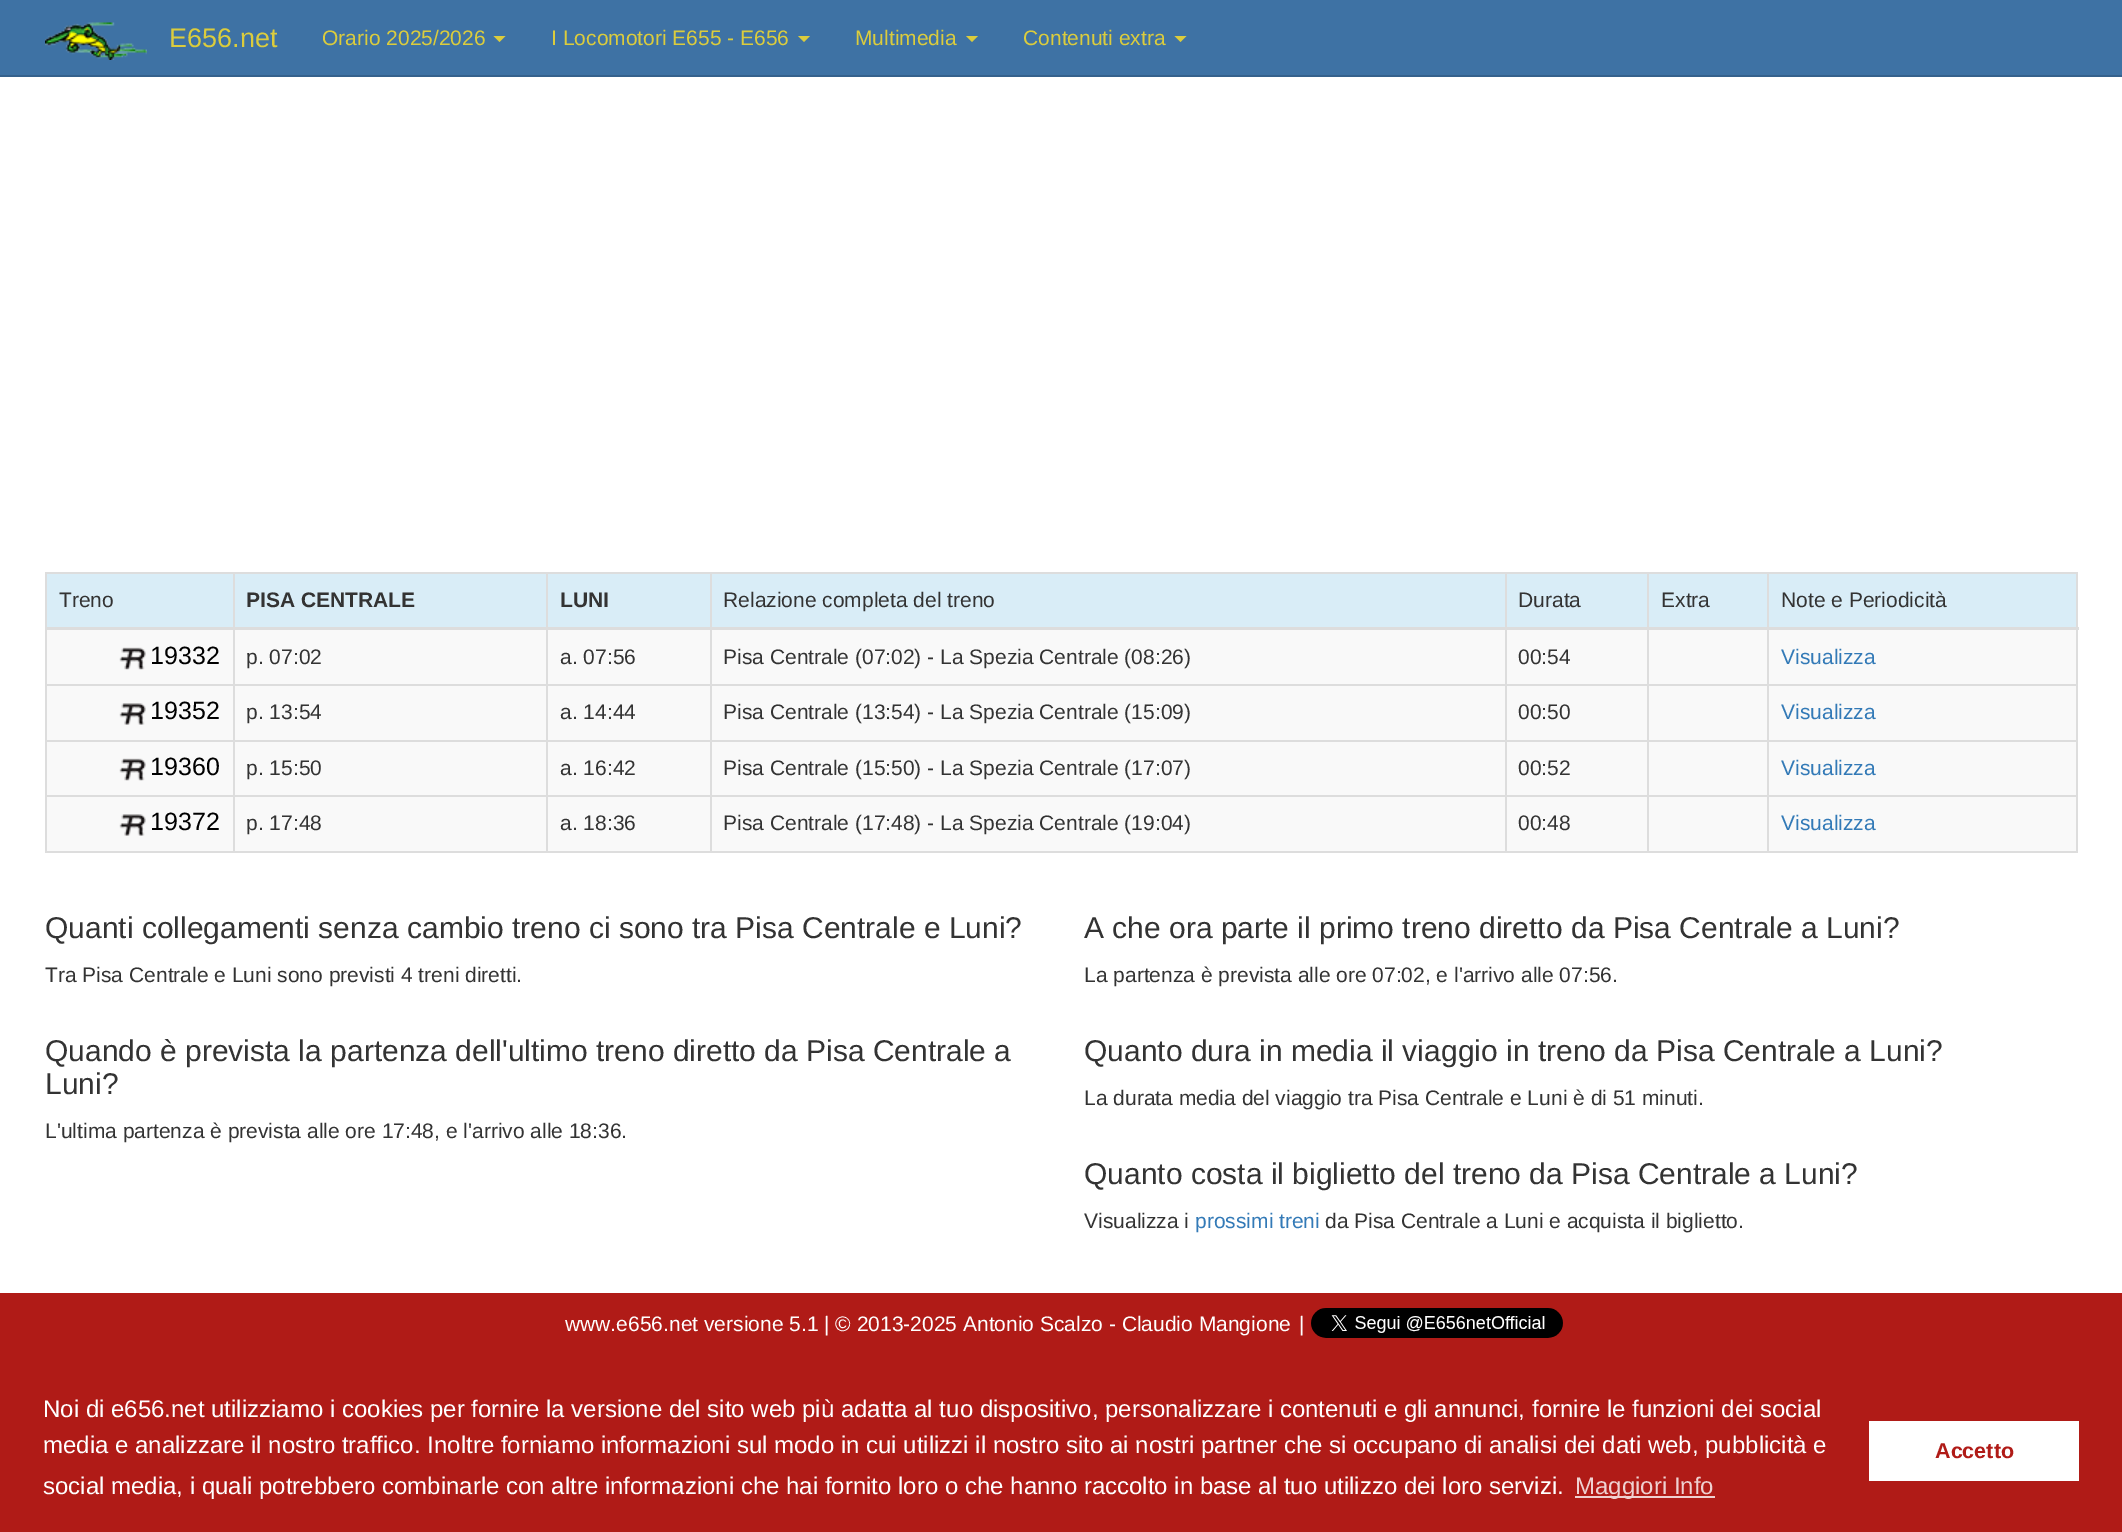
%!PS-Adobe-3.0
%%BoundingBox: 0 0 2122 1532
%%LanguageLevel: 3
%%Pages: 1
%%EndComments
%%BeginProlog
/drawimage { 5 dict begin { /h /w /y /x /name } { exch def } forall
  gsave x y translate w h scale
  w h 8 [w 0 0 h 0 0] name (r) file false 3 colorimage grestore end } def
%%EndProlog
%%BeginSetup
<< /PageSize [2122 1532] >> setpagedevice
%%EndSetup
%%Page: 1 1
0 1532 translate 1 -1 scale
4 setmiterlimit
1 setgray
0 0 2122 1532 rectfill
0.243 0.447 0.643 setrgbcolor
0 0 2122 75 rectfill
0.208 0.38 0.549 setrgbcolor
0 75 2122 2 rectfill
(images/1.raw) 45 22 102 38 drawimage
0.859 0.8 0.239 setrgbcolor
newpath 493.5 36 moveto 505.5 36 lineto 499.5 42 lineto closepath fill
newpath 798 36 moveto 810 36 lineto 804 42 lineto closepath fill
newpath 966 36 moveto 978 36 lineto 972 42 lineto closepath fill
newpath 1174.5 36 moveto 1186.5 36 lineto 1180.5 42 lineto closepath fill
0.867 setgray
45 572 2033 2 rectfill
2076 572 2 280 rectfill
45 851 2033 2 rectfill
45 572 2 280 rectfill
0.851 0.929 0.969 setrgbcolor
47 574 186 53 rectfill
235 574 311 53 rectfill
548 574 162 53 rectfill
712 574 793 53 rectfill
1507 574 140 53 rectfill
1649 574 118 53 rectfill
1769 574 307 53 rectfill
0.976 setgray
47 630 2029 54 rectfill
0.867 setgray
1767 684 311 2 rectfill
0.976 setgray
47 686 2029 54 rectfill
0.867 setgray
1767 740 311 2 rectfill
0.976 setgray
47 742 2029 53 rectfill
0.867 setgray
1767 795 311 2 rectfill
0.976 setgray
47 797 2029 54 rectfill
0.867 setgray
1767 795 2 57 rectfill
1647 795 122 2 rectfill
1767 740 2 57 rectfill
1647 740 122 2 rectfill
1767 684 2 57 rectfill
1647 684 122 2 rectfill
1647 795 2 57 rectfill
1505 795 144 2 rectfill
1647 740 2 57 rectfill
1505 740 144 2 rectfill
1647 684 2 57 rectfill
1505 684 144 2 rectfill
1505 795 2 57 rectfill
710 795 796 2 rectfill
1505 740 2 57 rectfill
710 740 796 2 rectfill
1505 684 2 57 rectfill
710 684 796 2 rectfill
710 795 2 57 rectfill
546 795 165 2 rectfill
710 740 2 57 rectfill
546 740 165 2 rectfill
710 684 2 57 rectfill
546 684 165 2 rectfill
546 795 2 57 rectfill
233 795 315 2 rectfill
546 740 2 57 rectfill
233 740 315 2 rectfill
546 684 2 57 rectfill
233 684 315 2 rectfill
233 795 2 57 rectfill
45 795 189 2 rectfill
233 740 2 57 rectfill
45 740 189 2 rectfill
233 684 2 57 rectfill
45 684 189 2 rectfill
233 572 2 114 rectfill
546 572 2 114 rectfill
710 572 2 114 rectfill
1505 572 2 114 rectfill
1647 572 2 114 rectfill
1767 572 2 114 rectfill
45 627 2034 3 rectfill
(images/2.raw) 119 647 27 23 drawimage
(images/3.raw) 119 703 27 22 drawimage
(images/2.raw) 119 758 27 23 drawimage
(images/3.raw) 119 814 27 22 drawimage
0.69 0.106 0.09 setrgbcolor
0 1293 2122 239 rectfill
(images/4.raw) 1311 1308 252 30 drawimage
0.937 0.82 0.82 setrgbcolor
1575 1496 140 2 rectfill
1 setgray
1869 1421 210 60 rectfill
/LiberationSans-Regular [27 0 0 -27 0 0] selectfont
0.859 0.8 0.239 setrgbcolor
169 47 moveto (E656.net) show
/LiberationSans-Regular [21 0 0 -21 0 0] selectfont
322 45 moveto (Orario 2025/2026) show
551 45 moveto (I Locomotori E655 - E656) show
855 45 moveto (Multimedia) show
1023 45 moveto (Contenuti extra) show
0.2 setgray
59 607 moveto (Treno) show
/LiberationSans-Bold [21 0 0 -21 0 0] selectfont
246 607 moveto (PISA CENTRALE) show
560 607 moveto (LUNI) show
/LiberationSans-Regular [21 0 0 -21 0 0] selectfont
723 607 moveto (Relazione completa del treno) show
1518 607 moveto (Durata) show
1661 607 moveto (Extra) show
1781 607 moveto (Note e Periodicità) show
/LiberationSans-Regular [25 0 0 -25 0 0] selectfont
0 setgray
150 664 moveto (19332) show
/LiberationSans-Regular [21 0 0 -21 0 0] selectfont
0.2 setgray
246 664 moveto (p. 07:02) show
560 664 moveto (a. 07:56) show
723 664 moveto (Pisa Centrale \(07:02\) - La Spezia Centrale \(08:26\)) show
1518 664 moveto (00:54) show
0.2 0.478 0.718 setrgbcolor
1781 664 moveto (Visualizza) show
/LiberationSans-Regular [25 0 0 -25 0 0] selectfont
0 setgray
150 719 moveto (19352) show
/LiberationSans-Regular [21 0 0 -21 0 0] selectfont
0.2 setgray
246 719 moveto (p. 13:54) show
560 719 moveto (a. 14:44) show
723 719 moveto (Pisa Centrale \(13:54\) - La Spezia Centrale \(15:09\)) show
1518 719 moveto (00:50) show
0.2 0.478 0.718 setrgbcolor
1781 719 moveto (Visualizza) show
/LiberationSans-Regular [25 0 0 -25 0 0] selectfont
0 setgray
150 775 moveto (19360) show
/LiberationSans-Regular [21 0 0 -21 0 0] selectfont
0.2 setgray
246 775 moveto (p. 15:50) show
560 775 moveto (a. 16:42) show
723 775 moveto (Pisa Centrale \(15:50\) - La Spezia Centrale \(17:07\)) show
1518 775 moveto (00:52) show
0.2 0.478 0.718 setrgbcolor
1781 775 moveto (Visualizza) show
/LiberationSans-Regular [25 0 0 -25 0 0] selectfont
0 setgray
150 830 moveto (19372) show
/LiberationSans-Regular [21 0 0 -21 0 0] selectfont
0.2 setgray
246 830 moveto (p. 17:48) show
560 830 moveto (a. 18:36) show
723 830 moveto (Pisa Centrale \(17:48\) - La Spezia Centrale \(19:04\)) show
1518 830 moveto (00:48) show
0.2 0.478 0.718 setrgbcolor
1781 830 moveto (Visualizza) show
/LiberationSans-Regular [30 0 0 -30 0 0] selectfont
0.2 setgray
45 938 moveto (Quanti collegamenti senza cambio treno ci sono tra Pisa Centrale e Luni?) show
/LiberationSans-Regular [21 0 0 -21 0 0] selectfont
45 982 moveto (Tra Pisa Centrale e Luni sono previsti 4 treni diretti.) show
/LiberationSans-Regular [30 0 0 -30 0 0] selectfont
1084 938 moveto (A che ora parte il primo treno diretto da Pisa Centrale a Luni?) show
/LiberationSans-Regular [21 0 0 -21 0 0] selectfont
1084 982 moveto (La partenza è prevista alle ore 07:02, e l'arrivo alle 07:56.) show
/LiberationSans-Regular [30 0 0 -30 0 0] selectfont
45 1061 moveto (Quando è prevista la partenza dell'ultimo treno diretto da Pisa Centrale a) show
45 1094 moveto (Luni?) show
/LiberationSans-Regular [21 0 0 -21 0 0] selectfont
45 1138 moveto (L'ultima partenza è prevista alle ore 17:48, e l'arrivo alle 18:36.) show
/LiberationSans-Regular [30 0 0 -30 0 0] selectfont
1084 1061 moveto (Quanto dura in media il viaggio in treno da Pisa Centrale a Luni?) show
/LiberationSans-Regular [21 0 0 -21 0 0] selectfont
1084 1105 moveto (La durata media del viaggio tra Pisa Centrale e Luni è di 51 minuti.) show
/LiberationSans-Regular [30 0 0 -30 0 0] selectfont
1084 1184 moveto (Quanto costa il biglietto del treno da Pisa Centrale a Luni?) show
/LiberationSans-Regular [21 0 0 -21 0 0] selectfont
1084 1228 moveto (Visualizza i) show
0.2 0.478 0.718 setrgbcolor
1195 1228 moveto (prossimi treni) show
0.2 setgray
1325 1228 moveto (da Pisa Centrale a Luni e acquista il biglietto.) show
1 setgray
565 1331 moveto (www.e656.net versione 5.1 | © 2013-2025 Antonio Scalzo - Claudio Mangione) show
1299 1331 moveto (|) show
/LiberationSans-Regular [24 0 0 -24 0 0] selectfont
43 1417 moveto (Noi di e656.net utilizziamo i cookies per fornire la versione del sito web più adatta al tuo dispositivo, personalizzare i contenuti e gli annunci, fornire le funzioni dei social) show
43 1453 moveto (media e analizzare il nostro traffico. Inoltre forniamo informazioni sul modo in cui utilizzi il nostro sito ai nostri partner che si occupano di analisi dei dati web, pubblicità e) show
43 1494 moveto (social media, i quali potrebbero combinarle con altre informazioni che hai fornito loro o che hanno raccolto in base al tuo utilizzo dei loro servizi.) show
0.937 0.82 0.82 setrgbcolor
1575 1494 moveto (Maggiori Info) show
/LiberationSans-Bold [21.5 0 0 -21.5 0 0] selectfont
0.69 0.106 0.09 setrgbcolor
1935 1458 moveto (Accetto) show
showpage
%%EOF
